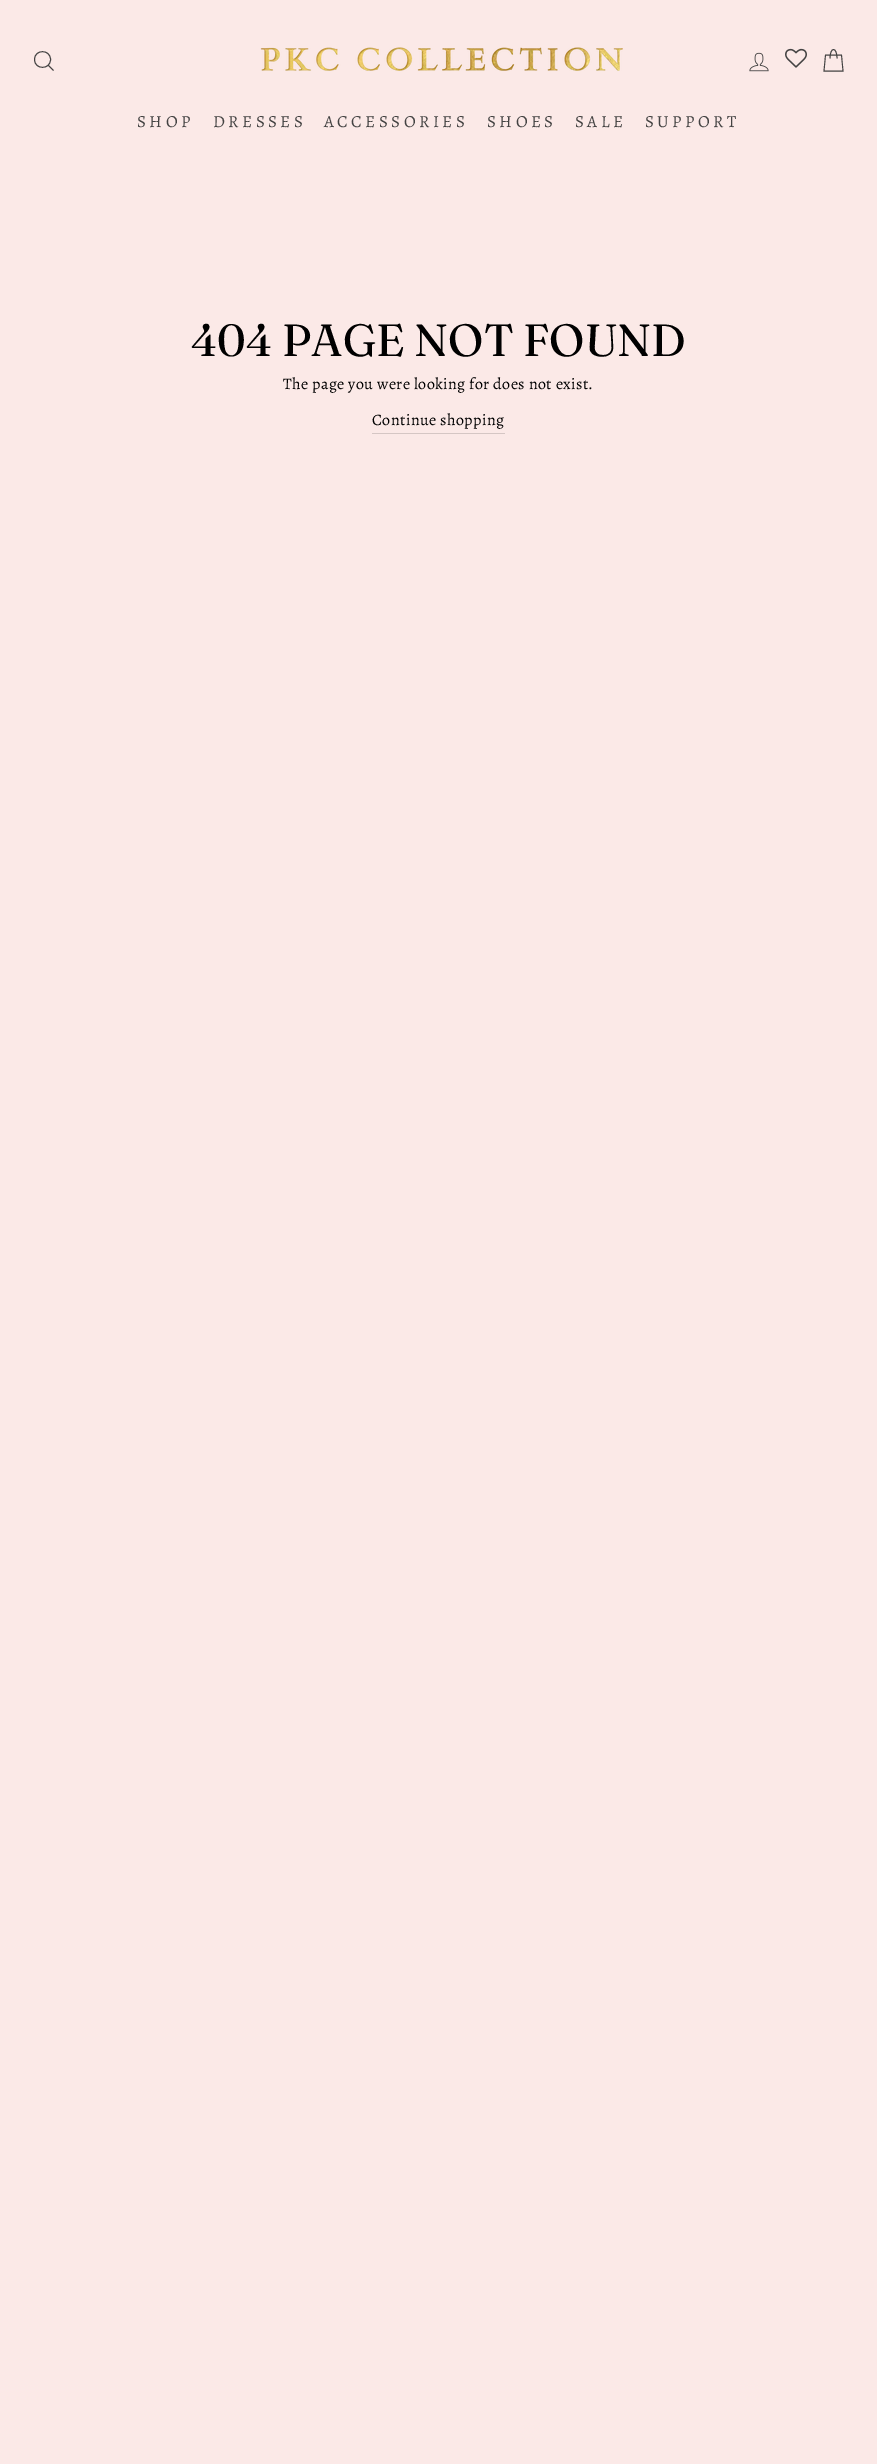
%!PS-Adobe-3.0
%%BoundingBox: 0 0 877 2464
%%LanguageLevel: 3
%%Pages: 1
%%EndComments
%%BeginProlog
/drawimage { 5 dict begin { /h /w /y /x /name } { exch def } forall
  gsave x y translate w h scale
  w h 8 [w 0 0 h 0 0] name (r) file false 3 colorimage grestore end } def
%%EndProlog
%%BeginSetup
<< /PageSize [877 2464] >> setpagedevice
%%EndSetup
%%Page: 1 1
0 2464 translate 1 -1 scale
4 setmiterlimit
0.984 0.914 0.906 setrgbcolor
0 0 877 2464 rectfill
0.267 0.263 0.263 setrgbcolor
0.9 setlinewidth
newpath 50.5 59.5 moveto 50.5 70 34.5 70 34.5 59.5 curveto 34.5 49 50.5 49 50.5 59.5 curveto closepath 53.5 70.5 moveto 48.5 65.5 lineto stroke
(images/1.raw) 260 47 363 24 drawimage
(images/2.raw) 749 52 20 20 drawimage
(images/3.raw) 785 48 22 20 drawimage
newpath 830 58.5 moveto 830 46.5 837 46.5 837 58.5 curveto 825.5 55 moveto 841.5 55 lineto 843 71 lineto 824 71 lineto closepath stroke
0.835 0.776 0.769 setrgbcolor
372 433 133 1 rectfill
/Alegreya-Regular [17 0 0 -17 0 0] selectfont
0.267 0.263 0.263 setrgbcolor
137 127 moveto 3.4 0 (SHOP) ashow
213 127 moveto 3.4 0 (DRESSES) ashow
324 127 moveto 3.4 0 (ACCESSORIES) ashow
487 127 moveto 3.4 0 (SHOES) ashow
575 127 moveto 3.4 0 (SALE) ashow
645 127 moveto 3.4 0 (SUPPORT) ashow
/Fraunces-Regular [45 0 0 -45 0 0] selectfont
0 setgray
191 356 moveto (404 PAGE NOT FOUND) show
/Alegreya-Regular [16 0 0 -16 0 0] selectfont
283 389 moveto 0.4 0 (The page you were looking for does not exist.) ashow
372 425 moveto 0.4 0 (Continue shopping) ashow
showpage
%%EOF
